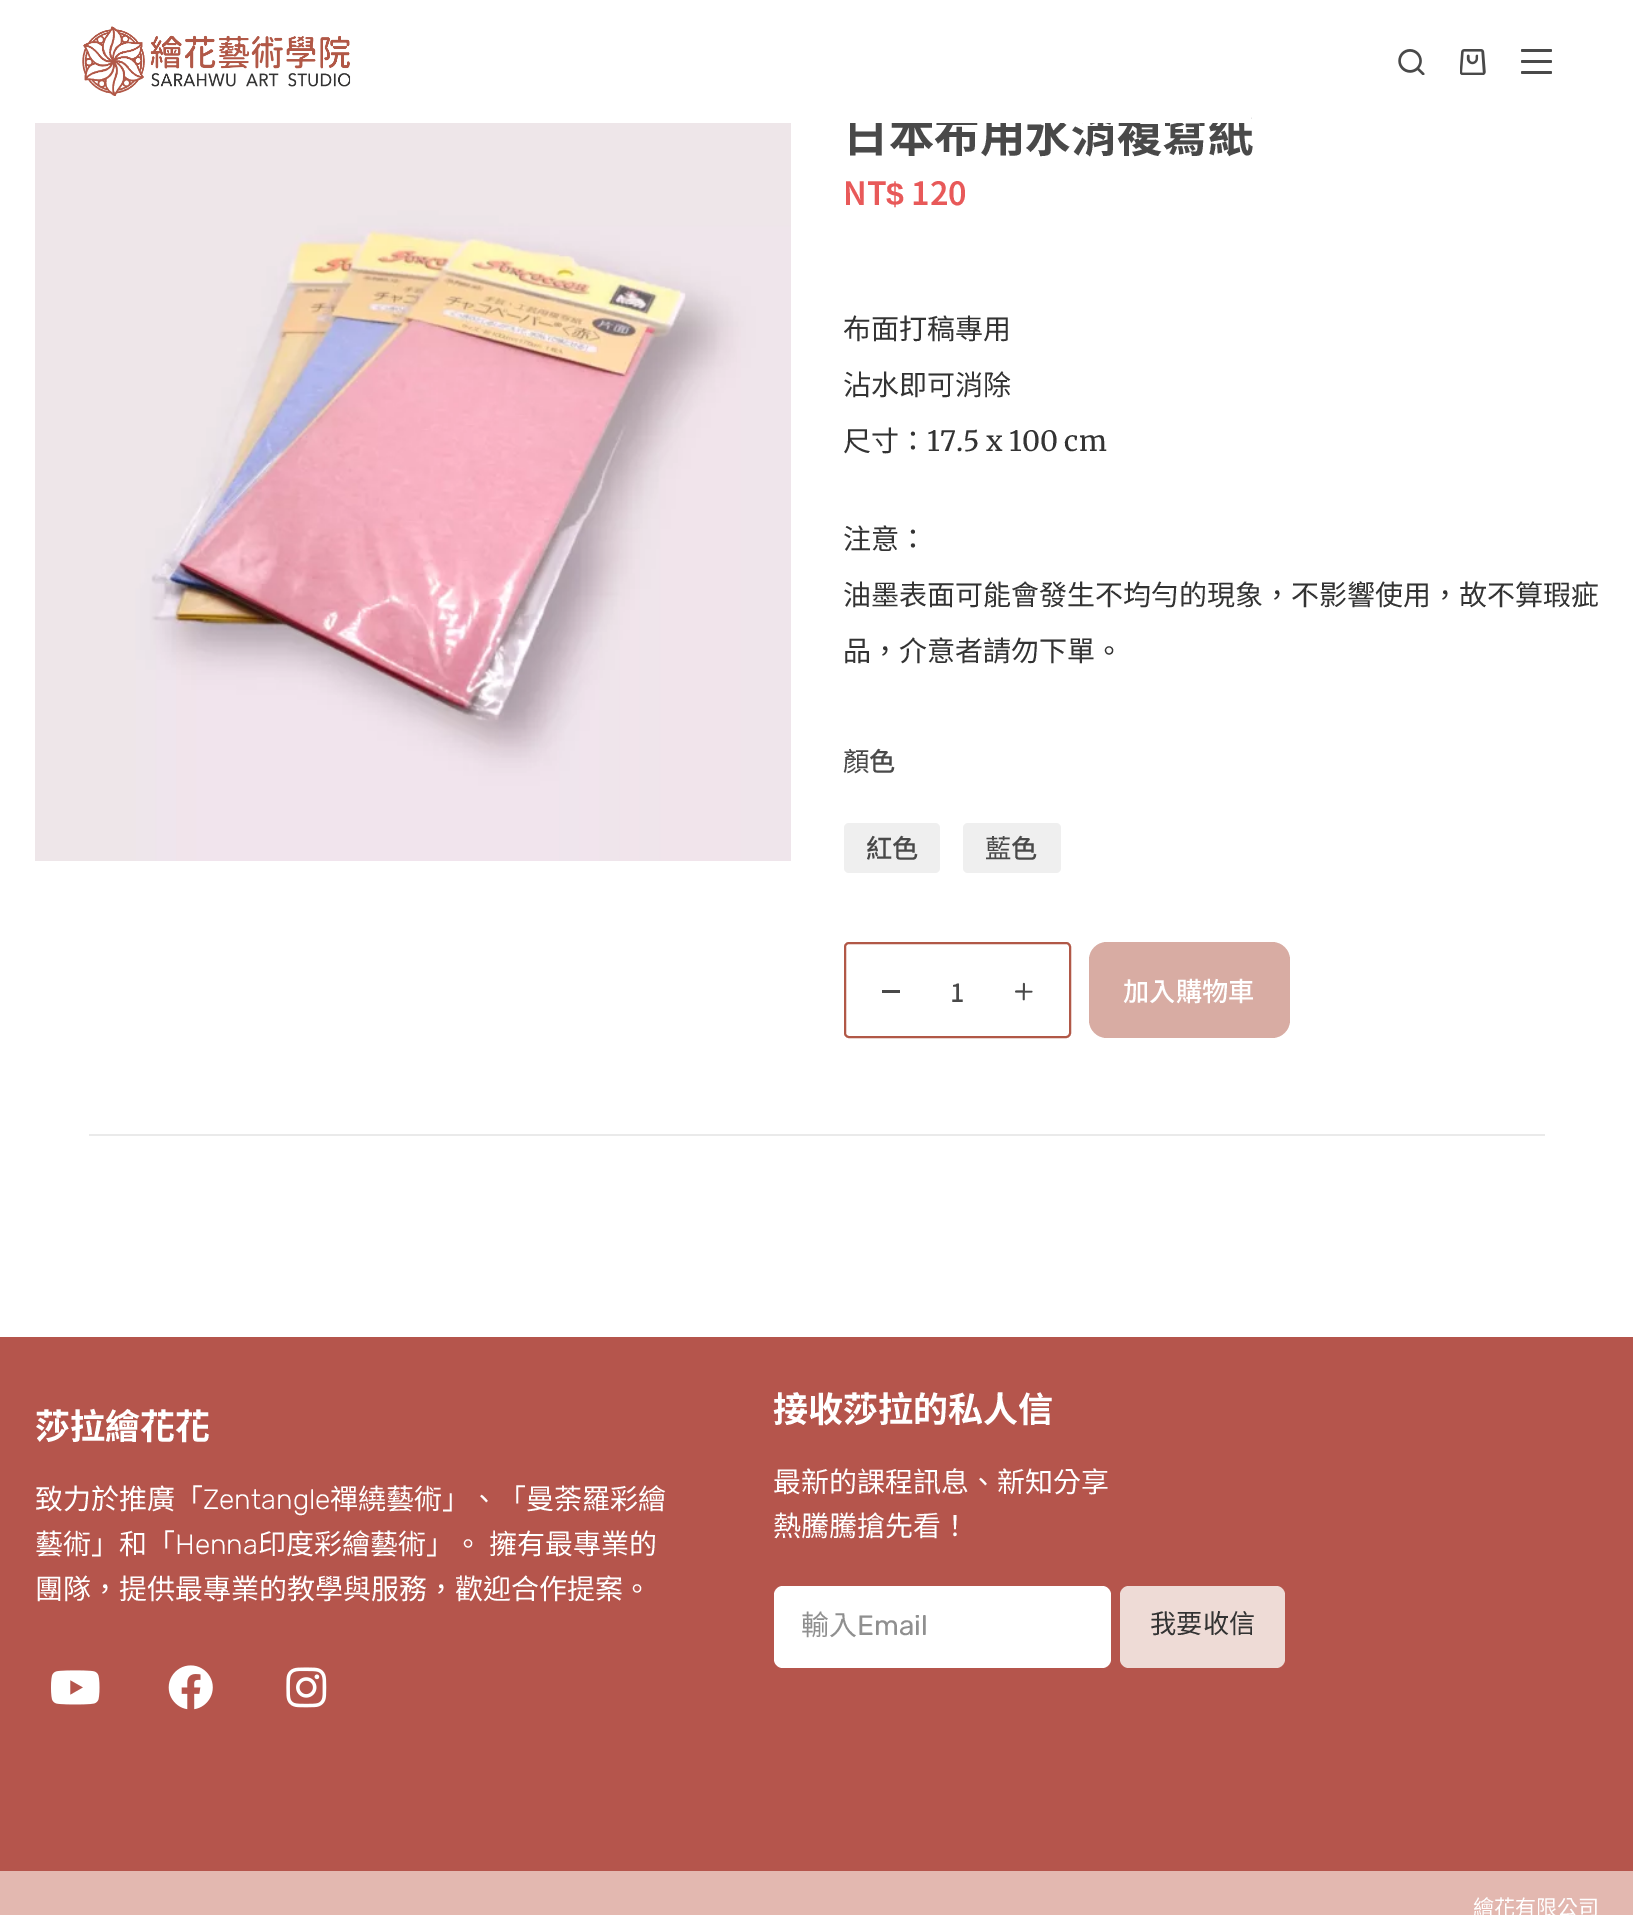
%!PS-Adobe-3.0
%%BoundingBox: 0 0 1633 1915
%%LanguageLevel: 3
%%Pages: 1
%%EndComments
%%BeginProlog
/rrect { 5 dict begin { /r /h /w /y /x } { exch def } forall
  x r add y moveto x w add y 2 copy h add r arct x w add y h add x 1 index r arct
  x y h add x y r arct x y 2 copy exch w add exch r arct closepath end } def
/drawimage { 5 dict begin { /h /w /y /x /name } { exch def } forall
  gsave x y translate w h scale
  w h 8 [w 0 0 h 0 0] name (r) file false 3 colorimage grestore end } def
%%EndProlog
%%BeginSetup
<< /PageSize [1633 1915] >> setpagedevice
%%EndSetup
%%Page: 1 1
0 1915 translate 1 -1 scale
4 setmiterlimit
1 setgray
0 0 1633 1915 rectfill
(images/1.raw) 82 26 269 70 drawimage
(images/2.raw) 1398 49 27 26 drawimage
(images/3.raw) 1460 49 26 26 drawimage
0.286 setgray
1521 49 31 3 1.5 rrect fill
1521 60 31 3 1.5 rrect fill
1521 71 31 3 1.5 rrect fill
(images/4.raw) 35 123 756 738 drawimage
0.937 setgray
844 823 96 50 5 rrect fill
963 823 98 50 5 rrect fill
0.694 0.345 0.278 setrgbcolor
2 setlinewidth
845 943 225 94 4 rrect stroke
0.286 setgray
882 990 18 3 rectfill
(images/5.raw) 1015 982 18 19 drawimage
0.847 0.675 0.639 setrgbcolor
1089 942 201 96 18 rrect fill
0.918 setgray
89 1134 1456 2 rectfill
0.71 0.333 0.298 setrgbcolor
0 1337 1633 534 rectfill
(images/6.raw) 51 1670 49 35 drawimage
(images/7.raw) 168 1665 45 45 drawimage
(images/8.raw) 286 1667 41 41 drawimage
1 setgray
774 1586 337 82 9 rrect fill
0.933 0.859 0.839 setrgbcolor
1120 1586 165 82 9 rrect fill
0.89 0.722 0.69 setrgbcolor
0 1871 1633 44 rectfill
/NotoSansTC-Bold [45.5 0 0 -45.5 0 0] selectfont
0.286 setgray
843 152 moveto (日本布用) show
/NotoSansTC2-Bold [45.5 0 0 -45.5 0 0] selectfont
1025 152 moveto (水) show
/NotoSansTC-Bold [45.5 0 0 -45.5 0 0] selectfont
1071 152 moveto (消複寫紙) show
1 setgray
850 113 401 10 rectfill
/NotoSansTC-SemiBold [32 0 0 -32 0 0] selectfont
0.91 0.349 0.349 setrgbcolor
843 205 moveto (NT) show
/LiberationSans-Bold [32 0 0 -32 0 0] selectfont
886 205 moveto ($) show
/NotoSansTC-SemiBold [32 0 0 -32 0 0] selectfont
911 205 moveto (120) show
/NotoSansCJKTC-Regular [28 0 0 -28 0 0] selectfont
0.2 setgray
843 339 moveto (布面打稿專用) show
843 395 moveto (沾水即可消除) show
843 451 moveto (尺寸：) show
/Merriweather-Regular [28 0 0 -28 0 0] selectfont
927 451 moveto (17.5 x 100 cm) show
/NotoSansCJKTC-Regular [28 0 0 -28 0 0] selectfont
843 549 moveto (注意：) show
843 605 moveto (油墨表面可能會發生不均勻的現象，不影響使用，故不算瑕疵) show
843 661 moveto (品，介意者請勿下單。) show
/NotoSansCJKTC-Regular [26.25 0 0 -26.25 0 0] selectfont
0.286 setgray
843 771 moveto (顏) show
/NotoSansTC-Medium [26.25 0 0 -26.25 0 0] selectfont
869 771 moveto (色) show
866 858 moveto (紅色) show
/NotoSansCJKTC-Regular [26.25 0 0 -26.25 0 0] selectfont
985 858 moveto (藍) show
/NotoSansTC-Medium [26.25 0 0 -26.25 0 0] selectfont
1011 858 moveto (色) show
/NotoSansTC-Medium [25 0 0 -25 0 0] selectfont
950 1002 moveto (1) show
/NotoSansTC-Medium [26.25 0 0 -26.25 0 0] selectfont
1 setgray
1123 1001 moveto (加入購物車) show
/NotoSansTC-Bold [35 0 0 -35 0 0] selectfont
35 1439 moveto (莎拉繪花花) show
/NotoSansCJKTC-Regular [28 0 0 -28 0 0] selectfont
35 1509 moveto (致力於推廣「) show
/Rubik-Light [28 0 0 -28 0 0] selectfont
203 1509 moveto (Zentangle) show
/NotoSansCJKTC-Regular [28 0 0 -28 0 0] selectfont
330 1509 moveto (禪繞藝術」、「曼荼羅彩繪) show
35 1554 moveto (藝術」和「) show
/Rubik-Light [28 0 0 -28 0 0] selectfont
175 1554 moveto (Henna) show
/NotoSansCJKTC-Regular [28 0 0 -28 0 0] selectfont
258 1554 moveto 1 0 32 (印度彩繪藝術」。 擁有最專業的) widthshow
35 1599 moveto (團隊，提供最專業的教學與服務，歡迎合作提案。) show
/NotoSansTC-Bold [35 0 0 -35 0 0] selectfont
773 1422 moveto (接) show
/NotoSansTC2-Bold [35 0 0 -35 0 0] selectfont
808 1422 moveto (收) show
/NotoSansTC-Bold [35 0 0 -35 0 0] selectfont
843 1422 moveto (莎拉的私人) show
/NotoSansTC2-Bold [35 0 0 -35 0 0] selectfont
1018 1422 moveto (信) show
/NotoSansCJKTC-Regular [28 0 0 -28 0 0] selectfont
773 1492 moveto (最新的課程訊息、新知分享) show
773 1536 moveto (熱騰騰搶先看！) show
0.561 setgray
801 1635 moveto (輸入) show
/Rubik-Regular [28 0 0 -28 0 0] selectfont
857 1635 moveto (Email) show
/NotoSansCJKTC-Regular [26.25 0 0 -26.25 0 0] selectfont
0.2 setgray
1150 1633 moveto (我要收信) show
/NotoSansCJKTC-Regular [21 0 0 -21 0 0] selectfont
1 setgray
1473 1915 moveto (繪花有限公司) show
showpage
%%EOF
